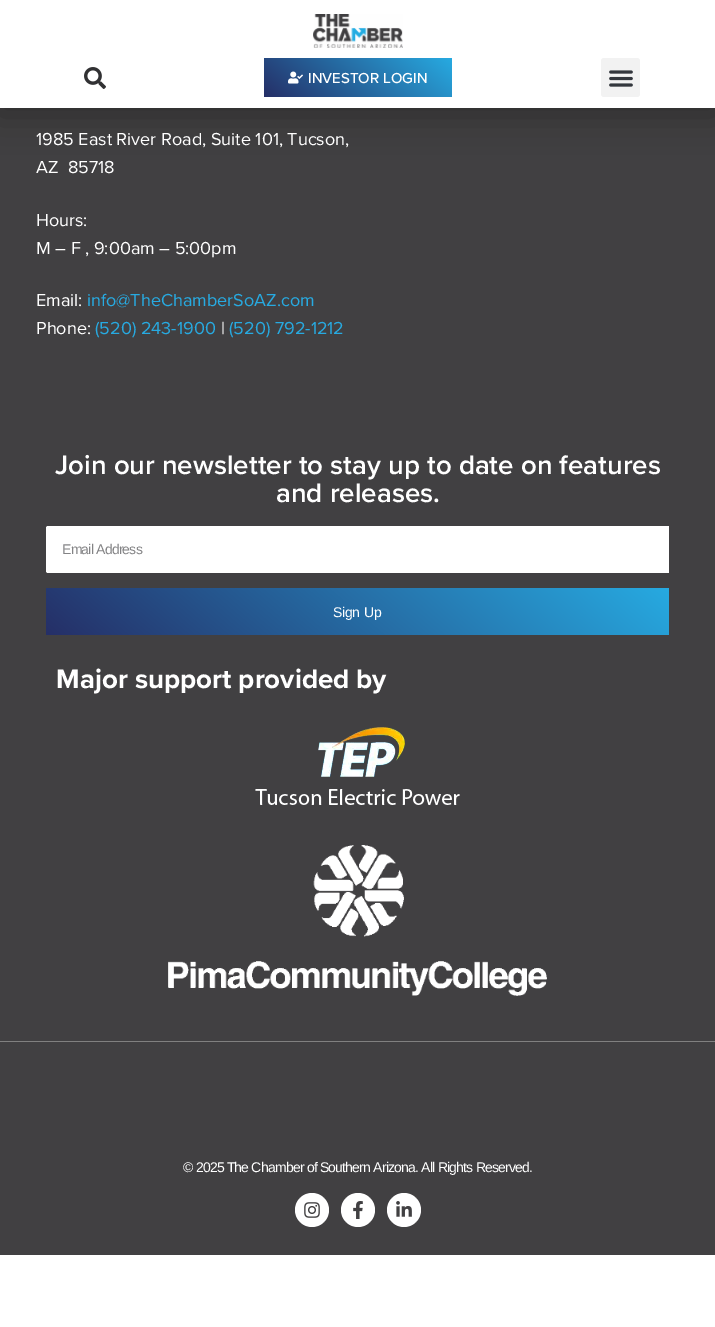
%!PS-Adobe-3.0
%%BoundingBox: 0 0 715 1327
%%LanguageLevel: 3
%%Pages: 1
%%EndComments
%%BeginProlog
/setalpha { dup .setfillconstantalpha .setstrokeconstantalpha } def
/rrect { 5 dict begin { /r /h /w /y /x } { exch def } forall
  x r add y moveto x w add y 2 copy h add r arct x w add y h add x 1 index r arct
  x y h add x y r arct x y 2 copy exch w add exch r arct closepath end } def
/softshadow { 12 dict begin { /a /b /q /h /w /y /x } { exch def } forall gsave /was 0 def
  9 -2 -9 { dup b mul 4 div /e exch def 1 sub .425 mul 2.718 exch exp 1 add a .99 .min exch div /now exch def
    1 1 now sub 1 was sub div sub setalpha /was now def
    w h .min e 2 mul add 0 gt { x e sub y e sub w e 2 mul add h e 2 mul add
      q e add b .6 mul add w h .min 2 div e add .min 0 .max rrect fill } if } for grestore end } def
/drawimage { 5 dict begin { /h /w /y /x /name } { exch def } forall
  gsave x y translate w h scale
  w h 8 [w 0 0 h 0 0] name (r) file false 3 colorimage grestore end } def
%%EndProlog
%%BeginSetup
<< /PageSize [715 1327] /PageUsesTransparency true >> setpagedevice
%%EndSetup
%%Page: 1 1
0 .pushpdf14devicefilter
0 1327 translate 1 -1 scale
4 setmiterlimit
1 setgray
0 0 715 1327 rectfill
0.255 0.251 0.259 setrgbcolor
0 108 715 1147 rectfill
0 setgray
-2 3 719 112 0 18 0.28 softshadow
1 setgray
0 0 715 108 rectfill
(images/1.raw) 313 14 90 34 drawimage
(images/2.raw) 84 67 22 22 drawimage
gsave 264 58 188 39 2 rrect clip newpath
<< /ShadingType 2 /ColorSpace /DeviceRGB /Coords [310 135 406 20] /Extend [true true] /Function << /FunctionType 2 /Domain [0 1] /C0 [0.145 0.184 0.404] /C1 [0.153 0.667 0.882] /N 1 >> >> shfill grestore
(images/3.raw) 288 71 15 13 drawimage
0.949 setgray
601 58 39 39 3 rrect fill
(images/4.raw) 609 70 24 17 drawimage
0.502 setgray
0 1041 715 1 rectfill
1 setgray
newpath 48 526 moveto 669 526 lineto 669 573 lineto 48 573 lineto 47 573 46 572 46 571 curveto 46 528 lineto 46 527 47 526 48 526 curveto closepath fill
gsave newpath 46 588 moveto 667 588 lineto 668 588 669 589 669 590 curveto 669 633 lineto 669 634 668 635 667 635 curveto 46 635 lineto closepath clip newpath
<< /ShadingType 2 /ColorSpace /DeviceRGB /Coords [217 779 498 444] /Extend [true true] /Function << /FunctionType 2 /Domain [0 1] /C0 [0.145 0.184 0.404] /C1 [0.153 0.667 0.882] /N 1 >> >> shfill grestore
(images/5.raw) 255 727 205 78 drawimage
(images/6.raw) 168 845 379 151 drawimage
newpath 312 1210 17 0 360 arc closepath fill
(images/7.raw) 304 1202 16 16 drawimage
newpath 358 1210 17 0 360 arc closepath fill
(images/8.raw) 353 1201 10 18 drawimage
newpath 404 1210 17 0 360 arc closepath fill
(images/9.raw) 396 1201 16 16 drawimage
/ProximaNova-Medium [15 0 0 -15 0 0] selectfont
308 83 moveto (INVESTOR LOGIN) show
/ProximaNova-Regular [18 0 0 -18 0 0] selectfont
36 145 moveto (1985 East River Road, Suite 101, Tucson,) show
36 173 moveto (AZ  85718) show
36 226 moveto (Hours:) show
36 254 moveto (M – F , 9:00am – 5:00pm) show
36 306 moveto (Email:) show
0.153 0.667 0.882 setrgbcolor
87 306 moveto (info@TheChamberSoAZ.com) show
1 setgray
36 334 moveto (Phone:) show
0.153 0.667 0.882 setrgbcolor
95 334 moveto (\(520\) 243-1900) show
1 setgray
221 334 moveto (|) show
0.153 0.667 0.882 setrgbcolor
229 334 moveto (\(520\) 792-1212) show
/ProximaNova-SemiBold [27.65 0 0 -27.65 0 0] selectfont
1 setgray
55 474 moveto (Join our newsletter to stay up to date on features) show
276 502 moveto (and releases.) show
/LiberationSans-Regular [14 0 0 -14 0 0] selectfont
0.514 0.514 0.522 setrgbcolor
62 554 moveto -0.8 0 (Email Address) ashow
1 setgray
333 617 moveto -0.25 0 (Sign Up) ashow
/ProximaNova-Bold [27.65 0 0 -27.65 0 0] selectfont
56 688 moveto (Major support provided by) show
/LiberationSans-Regular [14 0 0 -14 0 0] selectfont
183 1172 moveto -0.8 0 (© 2025 The Chamber of Southern Arizona. All Rights Reserved.) ashow
.poppdf14devicefilter showpage
%%EOF
